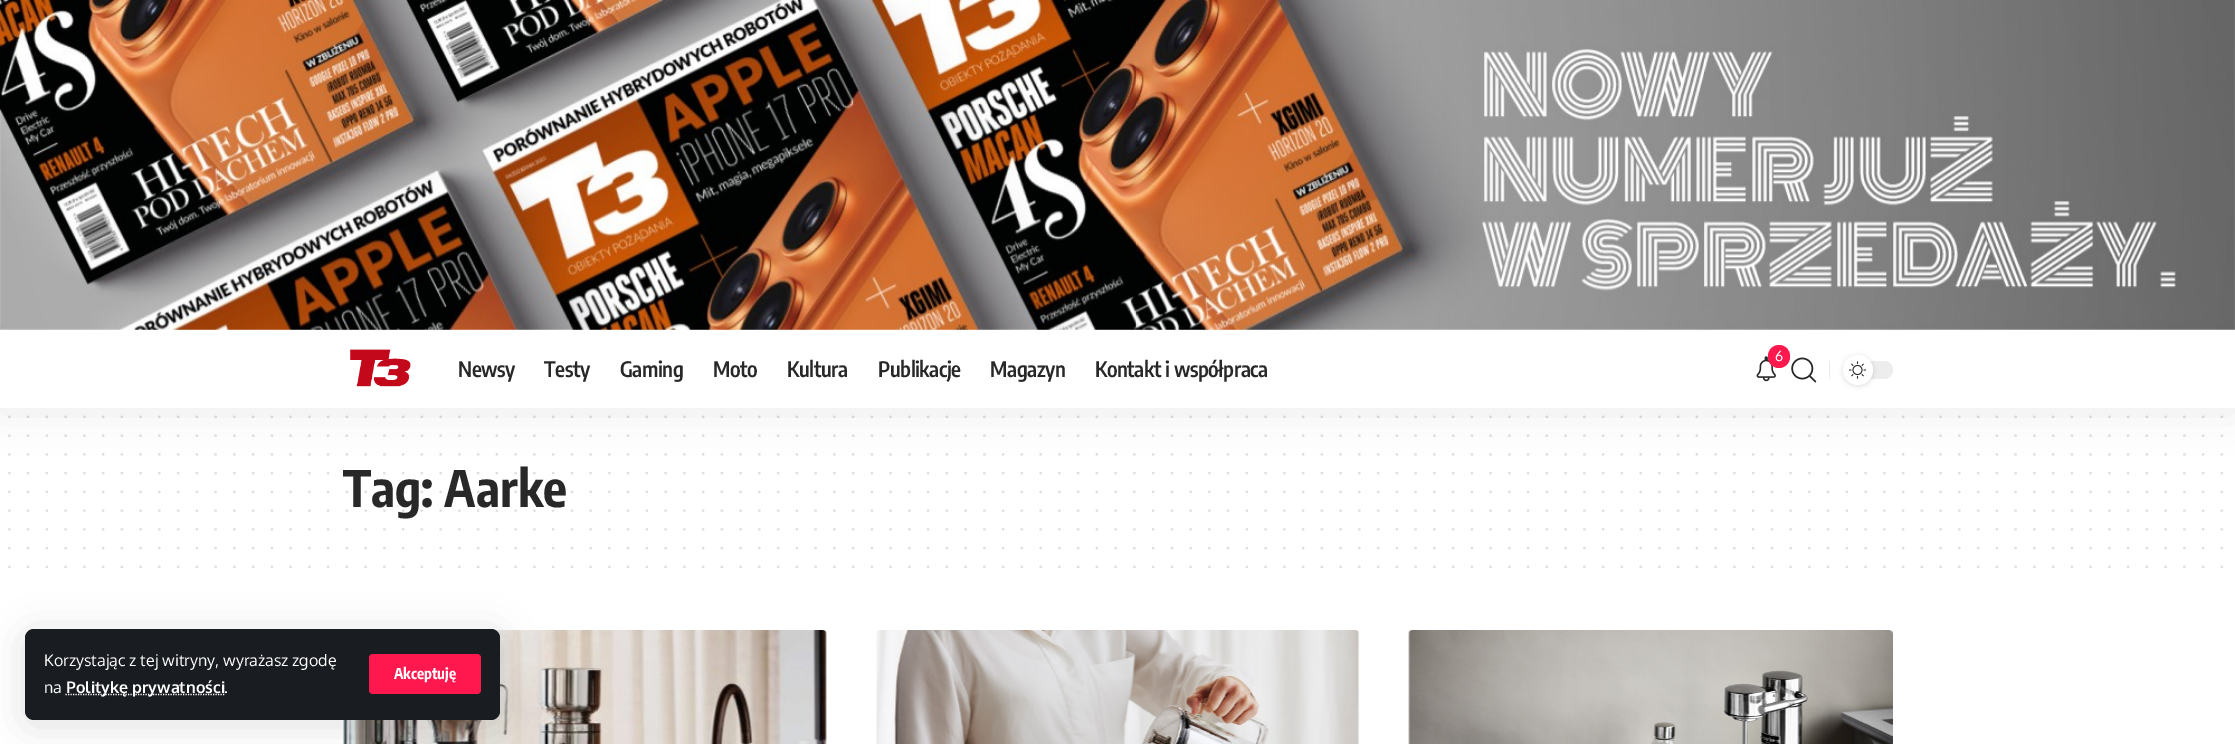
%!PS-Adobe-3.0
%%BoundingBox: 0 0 2235 744
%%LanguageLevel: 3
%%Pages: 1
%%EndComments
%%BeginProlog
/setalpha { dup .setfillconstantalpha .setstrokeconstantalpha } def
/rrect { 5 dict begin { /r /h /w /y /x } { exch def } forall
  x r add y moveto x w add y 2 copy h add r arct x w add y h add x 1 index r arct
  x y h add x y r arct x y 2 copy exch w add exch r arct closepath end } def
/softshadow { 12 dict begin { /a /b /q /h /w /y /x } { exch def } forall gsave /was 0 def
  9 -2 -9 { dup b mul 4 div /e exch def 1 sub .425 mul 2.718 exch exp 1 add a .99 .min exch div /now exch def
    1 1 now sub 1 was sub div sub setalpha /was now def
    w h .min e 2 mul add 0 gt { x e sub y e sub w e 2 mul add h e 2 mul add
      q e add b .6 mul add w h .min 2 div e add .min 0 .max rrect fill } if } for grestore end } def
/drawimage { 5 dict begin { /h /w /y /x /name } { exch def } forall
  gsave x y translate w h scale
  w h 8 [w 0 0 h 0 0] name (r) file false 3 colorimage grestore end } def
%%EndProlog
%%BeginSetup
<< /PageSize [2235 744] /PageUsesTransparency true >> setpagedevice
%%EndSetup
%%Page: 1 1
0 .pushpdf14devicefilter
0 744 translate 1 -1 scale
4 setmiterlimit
1 setgray
0 0 2235 744 rectfill
(images/1.raw) 0 0 2235 330 drawimage
0.875 setgray
2.5 setlinewidth
1 setlinecap
[0 18.75] 0 setdash
newpath 9.4 416.9 moveto 2222.1 416.9 lineto stroke
newpath 9.4 435.6 moveto 2222.1 435.6 lineto stroke
newpath 9.4 454.4 moveto 2222.1 454.4 lineto stroke
gsave
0 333 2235 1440 rectclip
0 setgray
0 338 2235 75 0 19 0.07 softshadow
grestore
1 setgray
0 333 2235 75 rectfill
(images/2.raw) 1756 356 20 26 drawimage
1 0.094 0.306 setrgbcolor
1768 345 22 23 11 rrect fill
(images/3.raw) 1791 357 26 26 drawimage
0.918 setgray
1829 361 1 18 rectfill
0.929 setgray
1843 361 50 18 9 rrect fill
0 setgray
1843 356 30 30 15 2.5 0.12 softshadow
1 setgray
newpath 1858 370 15 0 360 arc closepath fill
(images/4.raw) 1849 361 17 18 drawimage
(images/5.raw) 350 349 61 38 drawimage
(images/6.raw) 343 630 484 114 drawimage
0 setgray
25 634 475 91 9 19 0.12 softshadow
0.098 0.11 0.125 setrgbcolor
25 629 475 91 9 rrect fill
1 setgray
1.2 setlinewidth
0 setlinecap
[1.25 1.25] 0 setdash
newpath 65.5 694.5 moveto 224.5 694.5 lineto stroke
1 0.094 0.306 setrgbcolor
369 654 112 40 4 rrect fill
0.875 setgray
2.5 setlinewidth
1 setlinecap
[0 18.75] 0 setdash
newpath 9.4 529.4 moveto 2222.1 529.4 lineto stroke
newpath 9.4 548.1 moveto 2222.1 548.1 lineto stroke
newpath 9.4 566.9 moveto 2222.1 566.9 lineto stroke
(images/7.raw) 876 630 484 114 drawimage
(images/8.raw) 1408 630 485 114 drawimage
/Oxygen-Regular [14 0 0 -14 0 0] selectfont
1 setgray
1775 361 moveto (6) show
/EncodeSansCondensed-SemiBold [21.25 0 0 -21.25 0 0] selectfont
0.157 setgray
458 377 moveto -0.4 0 (Newsy) ashow
544 377 moveto -0.4 0 (Testy) ashow
620 377 moveto -0.4 0 (Gaming) ashow
713 377 moveto -0.4 0 (Moto) ashow
787 377 moveto -0.4 0 (Kultura) ashow
878 377 moveto -0.4 0 (Publikacje) ashow
990 377 moveto -0.4 0 (Magazyn) ashow
1095 377 moveto -0.4 0 (Kontakt i współpraca) ashow
/Oxygen-Regular [16 0 0 -16 0 0] selectfont
1 setgray
44 666 moveto (Korzystając z tej witryny, wyrażasz zgodę) show
44 693 moveto (na) show
/Oxygen-Bold [16 0 0 -16 0 0] selectfont
66 693 moveto (Politykę prywatności) show
/Oxygen-Regular [16 0 0 -16 0 0] selectfont
224 693 moveto (.) show
/EncodeSansCondensed-Bold [15 0 0 -15 0 0] selectfont
394 679 moveto (Akceptuję) show
/EncodeSansCondensed-Bold [50 0 0 -50 0 0] selectfont
0.157 setgray
343 507 moveto (Tag: Aarke) show
0.875 setgray
newpath 9.4 510.6 moveto 2222.1 510.6 lineto stroke
0.15 setalpha
0.157 setgray
newpath 9.4 491.9 moveto 2222.1 491.9 lineto stroke
newpath 9.4 473.1 moveto 2222.1 473.1 lineto stroke
.poppdf14devicefilter showpage
%%EOF
